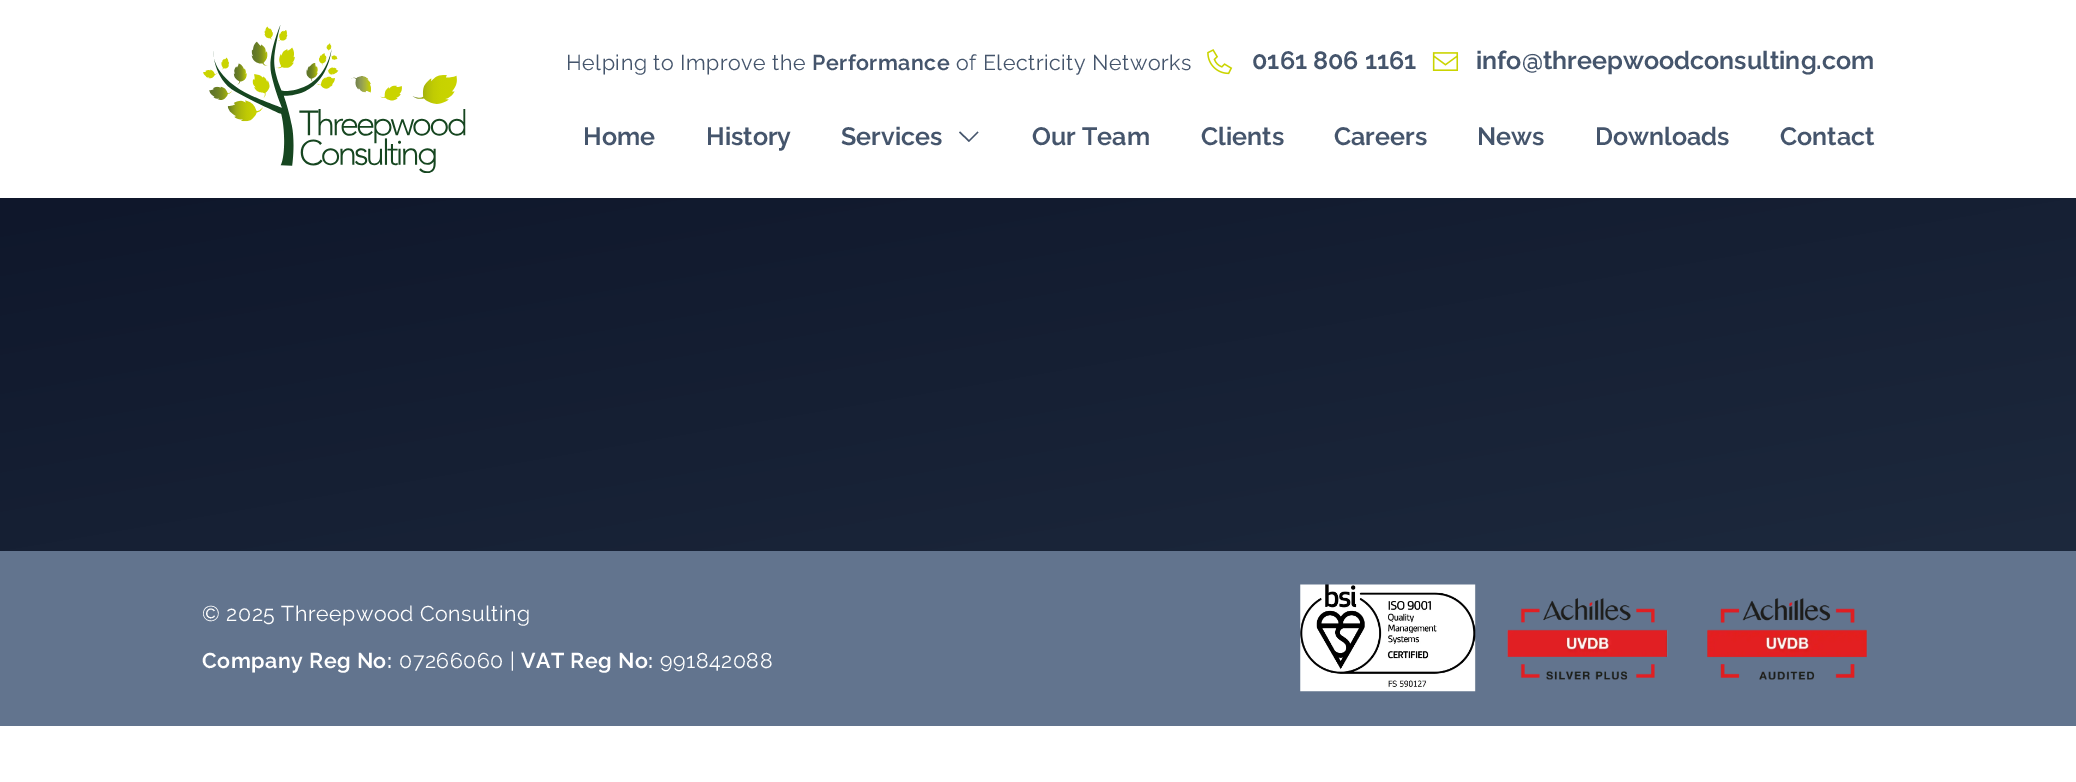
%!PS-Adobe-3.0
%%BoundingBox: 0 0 2076 782
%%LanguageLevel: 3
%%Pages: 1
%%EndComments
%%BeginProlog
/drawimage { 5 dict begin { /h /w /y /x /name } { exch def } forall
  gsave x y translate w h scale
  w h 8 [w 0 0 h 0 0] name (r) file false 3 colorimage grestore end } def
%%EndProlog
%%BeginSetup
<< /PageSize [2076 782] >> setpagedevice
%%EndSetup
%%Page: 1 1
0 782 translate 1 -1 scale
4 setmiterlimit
1 setgray
0 0 2076 782 rectfill
(images/1.raw) 203 25 263 148 drawimage
(images/2.raw) 1207 49 26 26 drawimage
(images/3.raw) 1432 52 27 19 drawimage
0.271 0.333 0.424 setrgbcolor
newpath 969 142 moveto 978.5 132.5 lineto 977.5 131.5 lineto 969 140 lineto 960 131.5 lineto 959 132.5 lineto closepath fill
gsave newpath 0 198 moveto 2076 198 lineto 2076 551 lineto 0 551 lineto closepath clip newpath
<< /ShadingType 2 /ColorSpace /DeviceRGB /Coords [980 31 1097 718] /Extend [true true] /Function << /FunctionType 2 /Domain [0 1] /C0 [0.059 0.09 0.169] /C1 [0.114 0.161 0.239] /N 1 >> >> shfill grestore
0.384 0.455 0.557 setrgbcolor
0 551 2076 175 rectfill
(images/4.raw) 1300 584 176 108 drawimage
(images/5.raw) 1507 598 161 82 drawimage
(images/6.raw) 1707 598 161 82 drawimage
/Raleway-Regular [21.4 0 0 -21.4 0 0] selectfont
0.271 0.333 0.424 setrgbcolor
566 70 moveto 0.5 0 (Helping to Improve the) ashow
/Raleway-SemiBold [21.4 0 0 -21.4 0 0] selectfont
812 70 moveto 0.5 0 (Performance) ashow
/Raleway-Regular [21.4 0 0 -21.4 0 0] selectfont
956 70 moveto 0.5 0 (of Electricity Networks) ashow
/Raleway-SemiBold [25.1 0 0 -25.1 0 0] selectfont
1252 69 moveto (0161 806 1161) show
1476 69 moveto (info@threepwoodconsulting.com) show
583 145 moveto (Home) show
706 145 moveto (History) show
841 145 moveto (Services) show
1032 145 moveto (Our Team) show
1201 145 moveto (Clients) show
1334 145 moveto (Careers) show
1477 145 moveto (News) show
1595 145 moveto (Downloads) show
1780 145 moveto (Contact) show
/Raleway-Regular [21.4 0 0 -21.4 0 0] selectfont
1 setgray
202 621 moveto 0.5 0 (© 2025 Threepwood Consulting) ashow
/Raleway-SemiBold [21.4 0 0 -21.4 0 0] selectfont
202 668 moveto 0.5 0 (Company Reg No:) ashow
/Raleway-Regular [21.4 0 0 -21.4 0 0] selectfont
399 668 moveto 0.5 0 (07266060 |) ashow
/Raleway-SemiBold [21.4 0 0 -21.4 0 0] selectfont
521 668 moveto 0.5 0 (VAT Reg No:) ashow
/Raleway-Regular [21.4 0 0 -21.4 0 0] selectfont
660 668 moveto 0.5 0 (991842088) ashow
showpage
%%EOF
